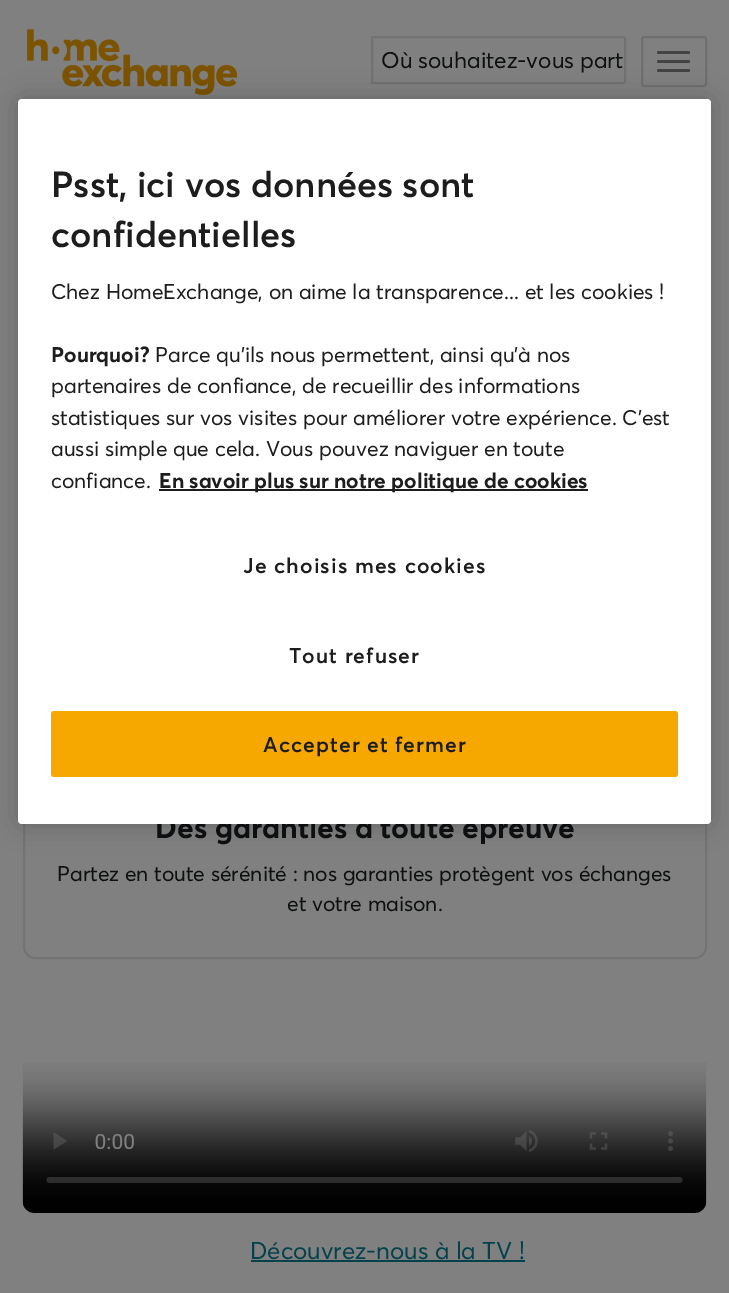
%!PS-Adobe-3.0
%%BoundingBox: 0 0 729 1293
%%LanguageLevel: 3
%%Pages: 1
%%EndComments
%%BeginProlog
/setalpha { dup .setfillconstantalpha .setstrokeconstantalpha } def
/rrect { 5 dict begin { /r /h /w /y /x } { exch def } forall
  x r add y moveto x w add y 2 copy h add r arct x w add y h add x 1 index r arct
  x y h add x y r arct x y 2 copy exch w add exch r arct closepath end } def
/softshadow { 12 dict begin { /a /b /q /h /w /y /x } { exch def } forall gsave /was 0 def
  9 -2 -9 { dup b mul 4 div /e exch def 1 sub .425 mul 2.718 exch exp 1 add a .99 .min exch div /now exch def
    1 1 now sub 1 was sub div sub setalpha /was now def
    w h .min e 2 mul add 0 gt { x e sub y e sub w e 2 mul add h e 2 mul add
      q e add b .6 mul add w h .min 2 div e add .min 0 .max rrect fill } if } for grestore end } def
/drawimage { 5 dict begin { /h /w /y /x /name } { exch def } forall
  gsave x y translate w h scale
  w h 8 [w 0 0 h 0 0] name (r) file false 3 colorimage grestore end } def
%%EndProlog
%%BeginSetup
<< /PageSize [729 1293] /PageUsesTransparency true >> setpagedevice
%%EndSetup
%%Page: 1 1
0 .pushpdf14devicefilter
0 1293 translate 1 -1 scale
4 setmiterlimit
0.502 setgray
0 0 729 1293 rectfill
(images/1.raw) 27 29 211 66 drawimage
0.447 setgray
2 setlinewidth
newpath 372 37 moveto 623 37 lineto 624 37 625 38 625 39 curveto 625 81 lineto 625 82 624 83 623 83 curveto 372 83 lineto closepath stroke
0.435 setgray
642 37 64 49 2 rrect stroke
0.267 setgray
657 51 33 3 1.5 rrect fill
657 60 33 3 1.5 rrect fill
657 69 33 3 1.5 rrect fill
0.451 0.451 0.447 setrgbcolor
24 729 682 229 11 rrect stroke
0 setgray
18 99 693 725 4 13.5 0.2 softshadow
(images/2.raw) 22 1062 685 151 drawimage
0.012 0.255 0.294 setrgbcolor
251 1260 274 2 rectfill
/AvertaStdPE-Regular [22.5 0 0 -22.5 0 0] selectfont
0.051 0.059 0.063 setrgbcolor
381 68 moveto (Où souhaitez-vous part) show
/AvertaStdPE-Bold [30 0 0 -30 0 0] selectfont
155 838 moveto (Des garanties à toute épreuve) show
1 setgray
18 99 693 725 4 rrect fill
0.969 0.659 0 setrgbcolor
51 711 627 66 3 rrect fill
/AvertaStdPE-SemiBold [21 0 0 -21 0 0] selectfont
0.118 0.114 0.114 setrgbcolor
263 752 moveto 1.05 0 (Accepter et fermer) ashow
289 663 moveto 1.05 0 (Tout refuser) ashow
243 573 moveto 1.05 0 (Je choisis mes cookies) ashow
159 489 429 2 rectfill
/AvertaStdPE-Bold [21 0 0 -21 0 0] selectfont
159 488 moveto (En savoir plus sur notre politique de cookies) show
/AvertaStdPE-Regular [21 0 0 -21 0 0] selectfont
51 488 moveto (confiance.) show
51 456 moveto (aussi simple que cela. Vous pouvez naviguer en toute) show
51 425 moveto (statistiques sur vos visites pour améliorer votre expérience. C’est) show
51 393 moveto (partenaires de confiance, de recueillir des informations) show
155 362 moveto (Parce qu'ils nous permettent, ainsi qu'à nos) show
/AvertaStdPE-Bold [21 0 0 -21 0 0] selectfont
51 362 moveto (Pourquoi?) show
/AvertaStdPE-Regular [21 0 0 -21 0 0] selectfont
51 299 moveto (Chez HomeExchange, on aime la transparence... et les cookies !) show
/AvertaStdPE-SemiBold [35.75 0 0 -35.75 0 0] selectfont
51 247 moveto (confidentielles) show
51 197 moveto (Psst, ici vos données sont) show
/AvertaStdPE-Regular [21 0 0 -21 0 0] selectfont
0.051 0.059 0.063 setrgbcolor
57 881 moveto (Partez en toute sérénité : nos garanties protègent vos échanges) show
287 911 moveto (et votre maison.) show
/AvertaStdPE-Regular [24 0 0 -24 0 0] selectfont
0.012 0.255 0.294 setrgbcolor
250 1259 moveto (Découvrez-nous à la TV !) show
.poppdf14devicefilter showpage
%%EOF
